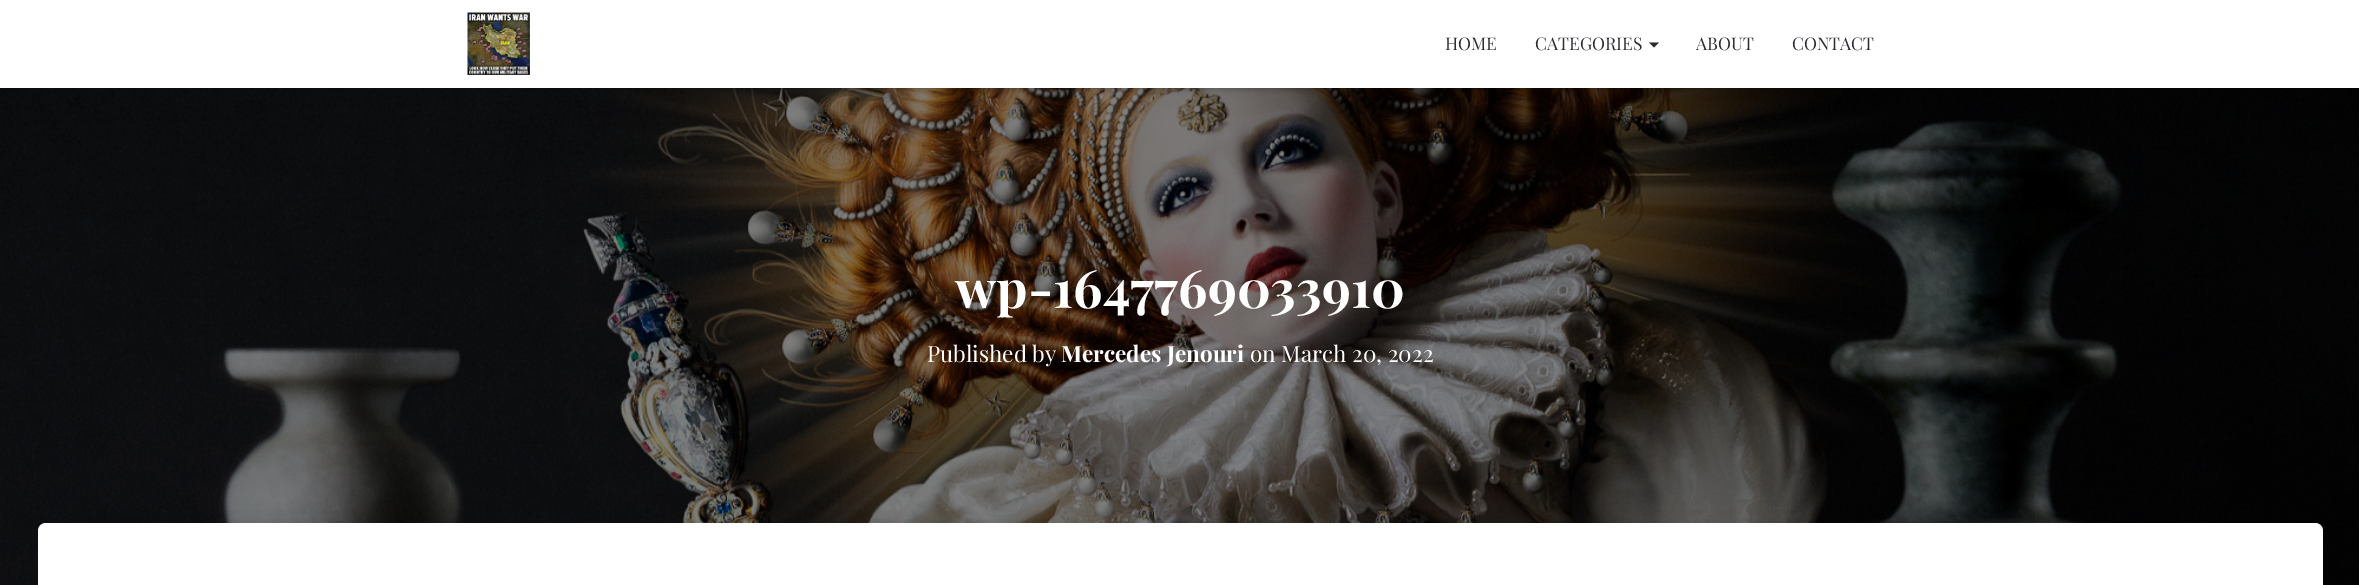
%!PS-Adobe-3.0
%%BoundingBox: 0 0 2359 585
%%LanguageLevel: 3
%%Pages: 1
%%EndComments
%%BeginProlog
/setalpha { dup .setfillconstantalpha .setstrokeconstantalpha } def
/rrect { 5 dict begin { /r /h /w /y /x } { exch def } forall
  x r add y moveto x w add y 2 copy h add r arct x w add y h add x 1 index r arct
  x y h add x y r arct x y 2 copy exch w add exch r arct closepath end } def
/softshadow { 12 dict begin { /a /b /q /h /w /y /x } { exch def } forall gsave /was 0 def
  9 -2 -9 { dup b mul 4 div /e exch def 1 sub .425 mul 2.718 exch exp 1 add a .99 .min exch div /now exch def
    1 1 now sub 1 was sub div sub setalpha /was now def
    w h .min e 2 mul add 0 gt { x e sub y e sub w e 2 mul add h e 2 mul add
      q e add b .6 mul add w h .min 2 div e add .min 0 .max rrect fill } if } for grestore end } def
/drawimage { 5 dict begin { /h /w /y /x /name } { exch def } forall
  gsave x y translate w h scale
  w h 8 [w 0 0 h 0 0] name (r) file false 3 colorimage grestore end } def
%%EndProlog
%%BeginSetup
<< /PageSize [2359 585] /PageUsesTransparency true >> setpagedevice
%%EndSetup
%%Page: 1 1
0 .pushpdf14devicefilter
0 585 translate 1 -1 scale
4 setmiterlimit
1 setgray
0 0 2359 585 rectfill
(images/2.raw) 0 88 2359 497 drawimage
0 setgray
3 8 2355 82 0 3 0.1 softshadow
0 1 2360 88 0 6 0.12 softshadow
8 9 2345 72 0 6 0.42 softshadow
1 setgray
0 0 2359 88 rectfill
(images/1.raw) 467 12 63 63 drawimage
0.173 0.176 0.192 setrgbcolor
newpath 1649 42.5 moveto 1659 42.5 lineto 1654 47.5 lineto closepath fill
0 setgray
31 524 2298 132 14 19 0.12 softshadow
35 540 2290 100 10 15 0.14 softshadow
1 setgray
newpath 46 523 moveto 2315 523 lineto 2319.5 523 2323 526.5 2323 531 curveto 2323 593 lineto 38 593 lineto 38 531 lineto 38 526.5 41.5 523 46 523 curveto closepath fill
/PlayfairDisplay-Regular [17.5 0 0 -17.5 0 0] selectfont
0.173 0.176 0.192 setrgbcolor
1445 50 moveto (HOME) show
1535 50 moveto (CATEGORIES) show
1696 50 moveto (ABOUT) show
1792 50 moveto (CONTACT) show
/PlayfairDisplay-Bold [52.5 0 0 -52.5 0 0] selectfont
1 setgray
955 308 moveto (wp-1647769033910) show
/PlayfairDisplay-Regular [22.5 0 0 -22.5 0 0] selectfont
927 362 moveto (Published by) show
/PlayfairDisplay-Bold [22.5 0 0 -22.5 0 0] selectfont
1061 362 moveto (Mercedes Jenouri) show
/PlayfairDisplay-Regular [22.5 0 0 -22.5 0 0] selectfont
1250 362 moveto (on March 20, 2022) show
.poppdf14devicefilter showpage
%%EOF
